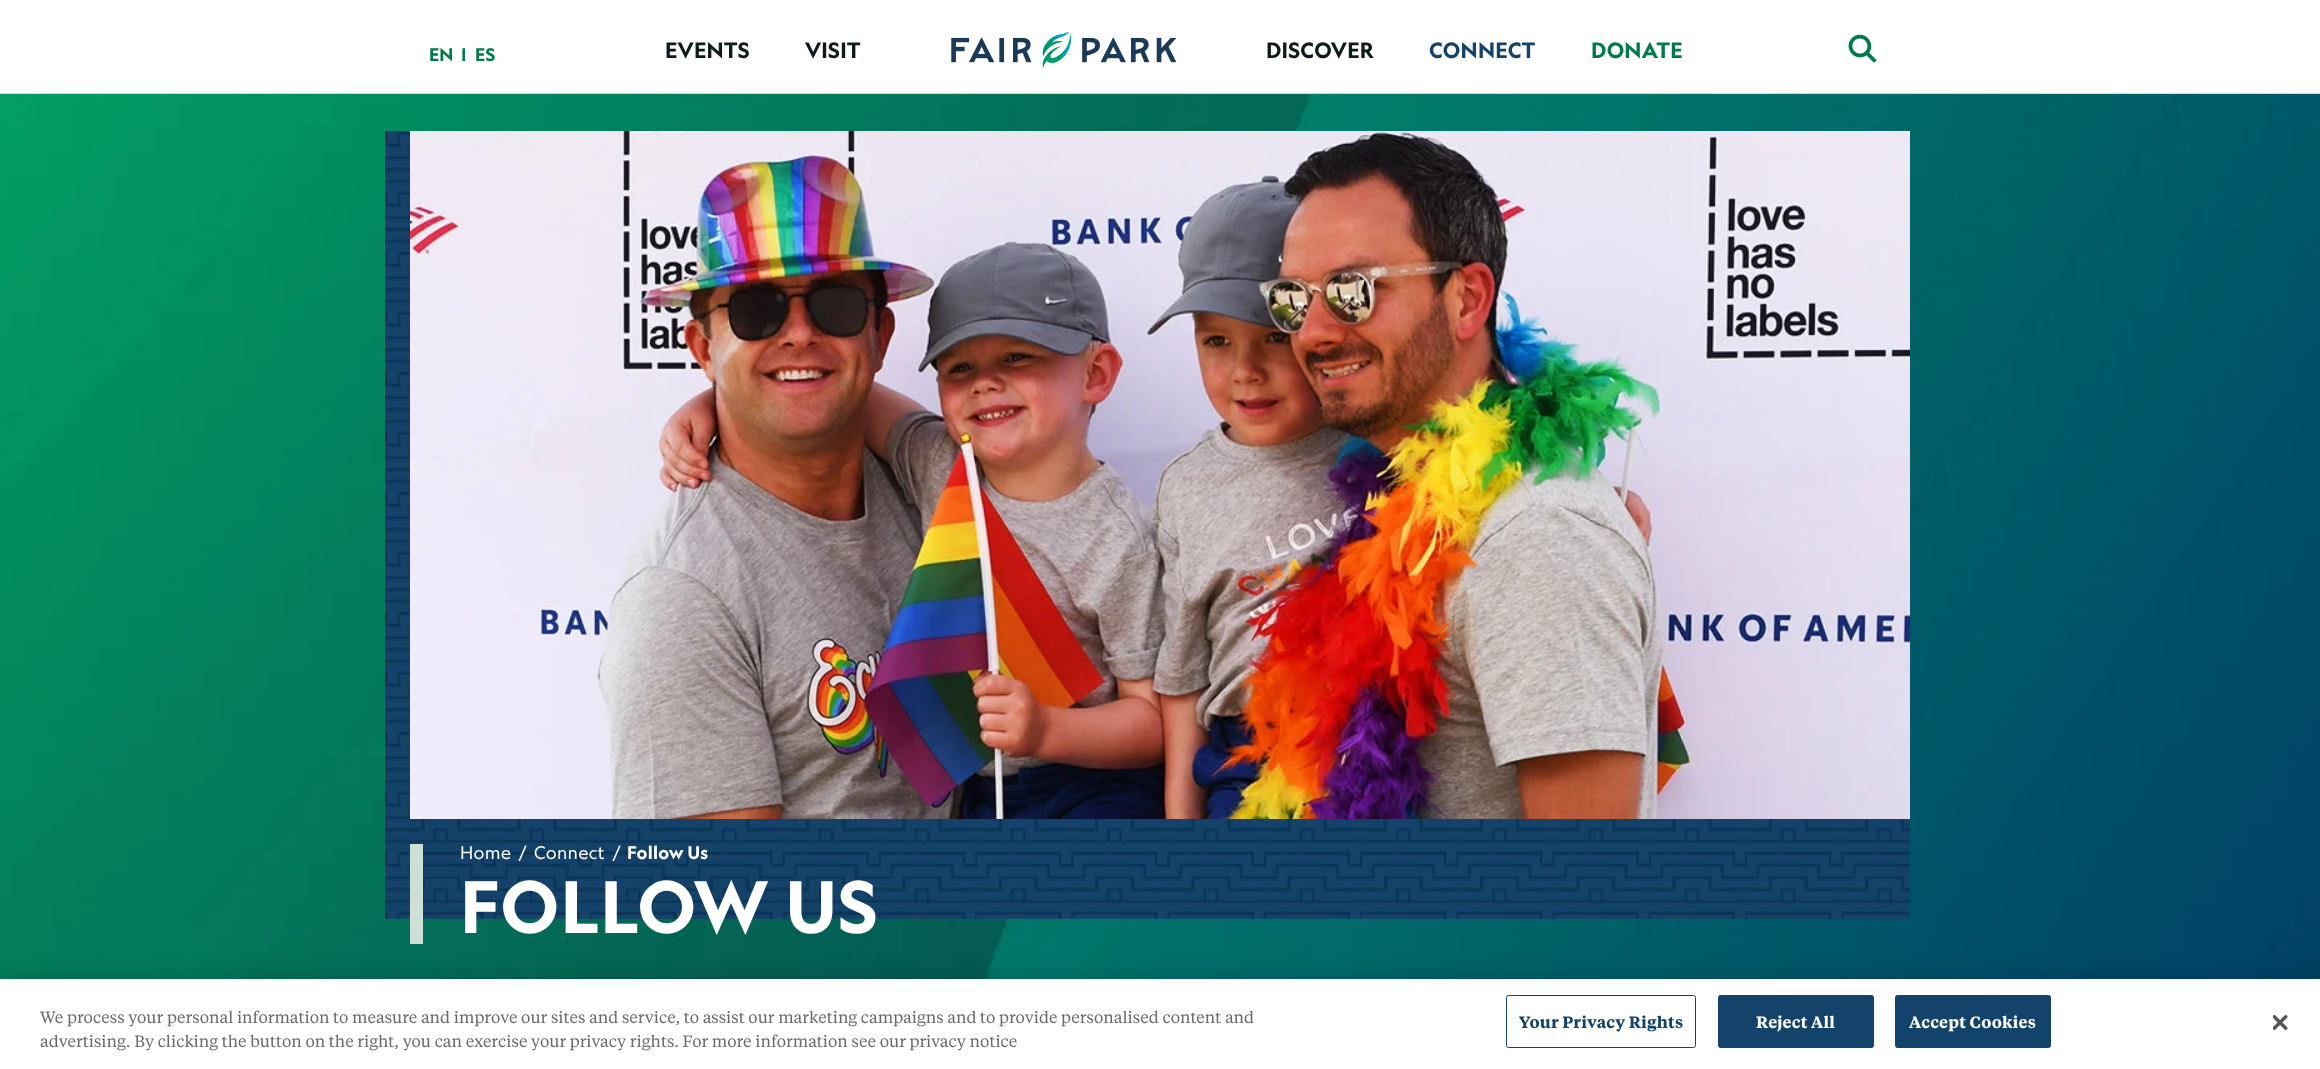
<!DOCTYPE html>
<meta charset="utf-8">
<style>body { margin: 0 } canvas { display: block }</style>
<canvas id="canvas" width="2320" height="1069"></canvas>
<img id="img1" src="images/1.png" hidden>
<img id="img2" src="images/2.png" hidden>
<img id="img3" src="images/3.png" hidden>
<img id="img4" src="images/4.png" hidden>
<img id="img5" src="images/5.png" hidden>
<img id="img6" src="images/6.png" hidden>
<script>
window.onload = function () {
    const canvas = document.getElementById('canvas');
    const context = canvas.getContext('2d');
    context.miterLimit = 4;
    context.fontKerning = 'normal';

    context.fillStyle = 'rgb(255, 255, 255)';
    context.fillRect(0, 0, 2320, 1069);
    context.fillStyle = 'rgb(206, 223, 214)';
    context.fillRect(0, 93, 2320, 1);
    context.drawImage(document.getElementById('img1'), 951, 31, 225, 37);
    context.drawImage(document.getElementById('img2'), 1848, 34, 29, 29);
    context.drawImage(document.getElementById('img3'), 0, 94, 2320, 885);
    context.drawImage(document.getElementById('img4'), 385, 131, 1525, 788);
    context.drawImage(document.getElementById('img5'), 410, 131, 1500, 688);
    context.fillRect(410, 844, 13, 100);
    context.fillStyle = 'rgba(0, 0, 0, 0.2)';
    context.filter = 'blur(11px)';
    context.beginPath();
    context.rect(0, 979, 2320, 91);
    context.fill();
    context.filter = 'none';
    context.fillStyle = 'rgb(255, 255, 255)';
    context.fillRect(0, 979, 2320, 90);
    context.beginPath();
    context.roundRect(1506.5, 995.5, 189, 52, 2);
    context.strokeStyle = 'rgb(19, 67, 107)';
    context.stroke();
    context.fillStyle = 'rgb(19, 67, 107)';
    context.beginPath();
    context.roundRect(1718.5, 995.5, 155, 52, 2);
    context.fill();
    context.stroke();
    context.beginPath();
    context.roundRect(1895.5, 995.5, 155, 52, 2);
    context.fill();
    context.stroke();
    context.drawImage(document.getElementById('img6'), 2273, 1015, 15, 15);
    context.letterSpacing = '0.25px';
    context.font = 'bold 17.5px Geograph';
    context.fillStyle = 'rgb(0, 122, 73)';
    context.fillText('EN', 429, 61);
    context.fillText('|', 461, 61);
    context.fillText('ES', 475, 61);
    context.font = 'bold 21.25px Geograph';
    context.fillStyle = 'rgb(13, 27, 30)';
    context.fillText('EVENTS', 665, 58);
    context.fillText('VISIT', 805, 58);
    context.fillText('DISCOVER', 1266, 58);
    context.fillStyle = 'rgb(19, 67, 107)';
    context.fillText('CONNECT', 1429, 58);
    context.fillStyle = 'rgb(0, 122, 73)';
    context.fillText('DONATE', 1591, 58);
    context.font = '17.5px Geograph';
    context.fillStyle = 'rgb(255, 255, 255)';
    context.fillText('Home', 460, 859);
    context.fillText('/', 518, 859);
    context.fillText('Connect', 534, 859);
    context.fillText('/', 612, 859);
    context.font = 'bold 17.5px Geograph';
    context.fillText('Follow Us', 627, 859);
    context.letterSpacing = '1.5px';
    context.font = 'bold 71px Geograph';
    context.fillText('FOLLOW US', 460, 933);
    context.letterSpacing = '0px';
    context.font = '16.25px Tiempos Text';
    context.fillStyle = 'rgb(105, 105, 105)';
    context.fillText('We process your personal information to measure and improve our sites and service, to assist our marketing campaigns and to provide personalised content and', 40, 1023);
    context.fillText('advertising. By clicking the button on the right, you can exercise your privacy rights. For more information see our privacy notice', 40, 1047);
    context.letterSpacing = '0.2px';
    context.font = '600 16.25px Tiempos Text';
    context.fillStyle = 'rgb(19, 67, 107)';
    context.fillText('Your Privacy Rights', 1519, 1028);
    context.fillStyle = 'rgb(255, 255, 255)';
    context.fillText('Reject All', 1756, 1028);
    context.fillText('Accept Cookies', 1909, 1028);
};
</script>
